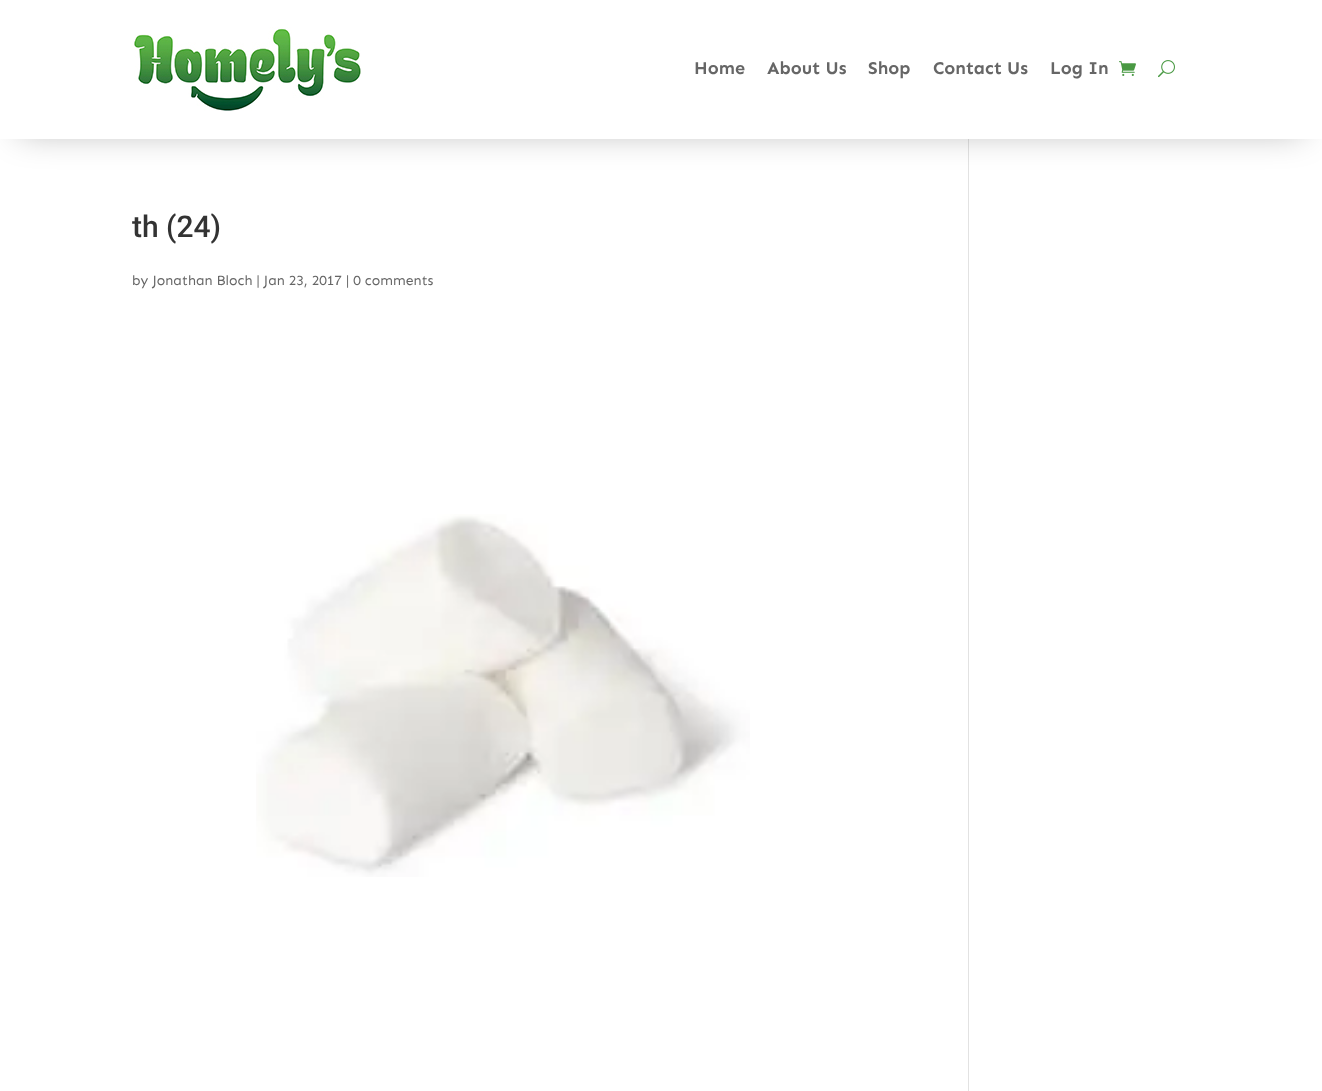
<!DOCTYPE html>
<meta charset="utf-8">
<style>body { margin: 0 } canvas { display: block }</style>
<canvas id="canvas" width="1322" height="1091"></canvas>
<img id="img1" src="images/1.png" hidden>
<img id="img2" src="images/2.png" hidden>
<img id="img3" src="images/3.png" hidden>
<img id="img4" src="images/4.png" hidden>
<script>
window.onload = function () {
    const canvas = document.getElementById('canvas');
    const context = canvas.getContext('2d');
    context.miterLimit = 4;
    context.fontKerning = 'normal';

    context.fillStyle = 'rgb(255, 255, 255)';
    context.fillRect(0, 0, 1322, 1091);
    context.fillStyle = 'rgb(226, 226, 226)';
    context.fillRect(968, 139, 1, 952);
    context.fillStyle = 'rgba(0, 0, 0, 0.3)';
    context.filter = 'blur(17px)';
    context.beginPath();
    context.rect(19, 31, 1284, 101);
    context.fill();
    context.filter = 'none';
    context.fillStyle = 'rgb(255, 255, 255)';
    context.fillRect(0, 0, 1322, 139);
    context.drawImage(document.getElementById('img1'), 134, 27, 227, 84);
    context.drawImage(document.getElementById('img2'), 1119, 61, 17, 15);
    context.drawImage(document.getElementById('img3'), 1158, 60, 17, 18);
    context.drawImage(document.getElementById('img4'), 256, 514, 494, 363);
    context.font = 'bold 18px Sen';
    context.fillStyle = 'rgb(102, 102, 102)';
    context.fillText('Home', 694, 74);
    context.fillText('About Us', 767, 74);
    context.fillText('Shop', 868, 74);
    context.fillText('Contact Us', 933, 74);
    context.fillText('Log In', 1050, 74);
    context.font = '500 30px Roboto';
    context.fillStyle = 'rgb(51, 51, 51)';
    context.fillText('th (24)', 132, 237);
    context.font = '14px Sen';
    context.fillStyle = 'rgb(102, 102, 102)';
    context.fillText('by Jonathan Bloch | Jan 23, 2017 | 0 comments', 132, 285);
};
</script>
